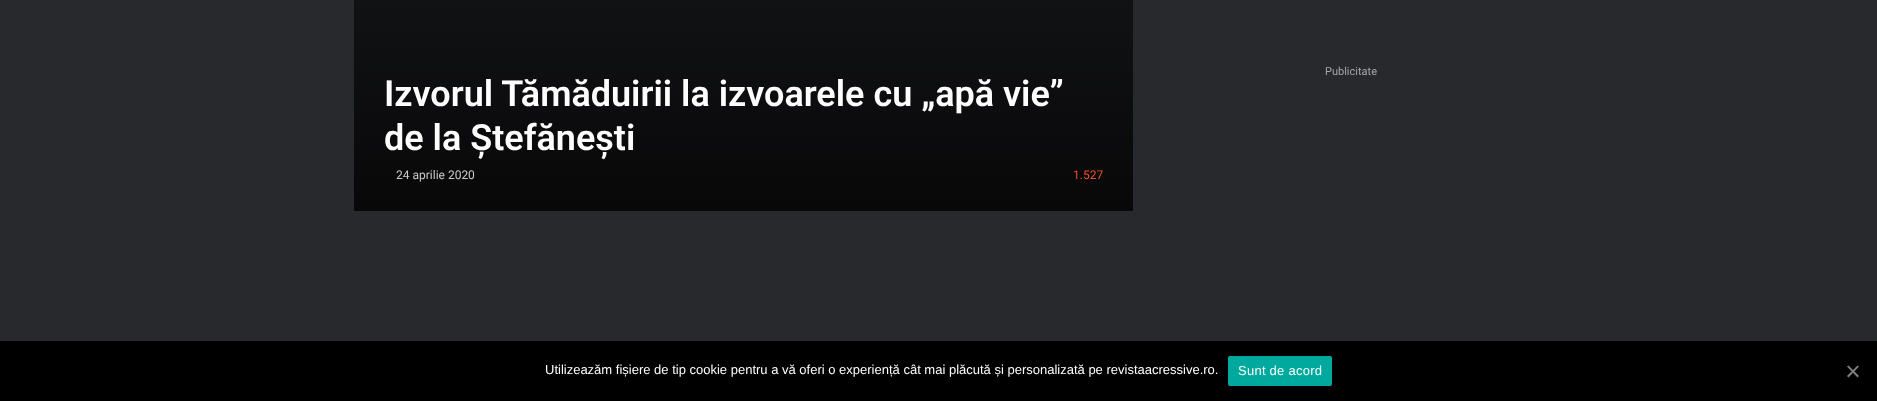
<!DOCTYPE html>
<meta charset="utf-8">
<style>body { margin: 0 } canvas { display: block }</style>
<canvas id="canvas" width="1877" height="401"></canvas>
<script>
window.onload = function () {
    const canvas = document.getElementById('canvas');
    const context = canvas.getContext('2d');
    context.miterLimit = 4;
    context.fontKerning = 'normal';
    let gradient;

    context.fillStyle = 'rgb(39, 41, 45)';
    context.fillRect(0, 0, 1877, 401);
    gradient = context.createLinearGradient(744, -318, 744, 211);
    gradient.addColorStop(0, 'rgb(31, 33, 36)');
    gradient.addColorStop(1, 'rgb(8, 8, 9)');
    context.fillStyle = gradient;
    context.fillRect(354, 0, 779, 211);
    context.fillStyle = 'rgb(0, 0, 0)';
    context.fillRect(0, 341, 1877, 60);
    context.fillStyle = 'rgb(0, 169, 157)';
    context.beginPath();
    context.roundRect(1228, 356, 104, 30, 2);
    context.fill();
    context.fillStyle = 'rgb(128, 128, 128)';
    context.beginPath();
    context.moveTo(1857.5, 365.5);
    context.lineTo(1859, 366.5);
    context.lineTo(1848.5, 377.5);
    context.lineTo(1847, 376);
    context.closePath();
    context.fill();
    context.beginPath();
    context.moveTo(1847, 366.5);
    context.lineTo(1848.5, 365.5);
    context.lineTo(1859, 376);
    context.lineTo(1857.5, 377.5);
    context.closePath();
    context.fill();
    context.font = '11px Roboto';
    context.fillStyle = 'rgb(165, 165, 165)';
    context.fillText('Publicitate', 1325, 75);
    context.font = '600 36px Roboto';
    context.fillStyle = 'rgb(253, 253, 253)';
    context.fillText('Izvorul Tămăduirii la izvoarele cu „apă vie”', 384, 106);
    context.fillText('de la Ștefănești', 384, 150);
    context.font = '12px Roboto';
    context.fillStyle = 'rgb(202, 202, 202)';
    context.fillText('24 aprilie 2020', 396, 179);
    context.fillStyle = 'rgb(241, 80, 42)';
    context.fillText('1.527', 1073, 179);
    context.font = '13px Liberation Sans';
    context.fillStyle = 'rgb(253, 253, 253)';
    context.fillText('Utilizeazăm fișiere de tip cookie pentru a vă oferi o experiență cât mai plăcută și personalizată pe revistaacressive.ro.', 545, 374);
    context.letterSpacing = '0.25px';
    context.fillText('Sunt de acord', 1238, 375);
};
</script>
